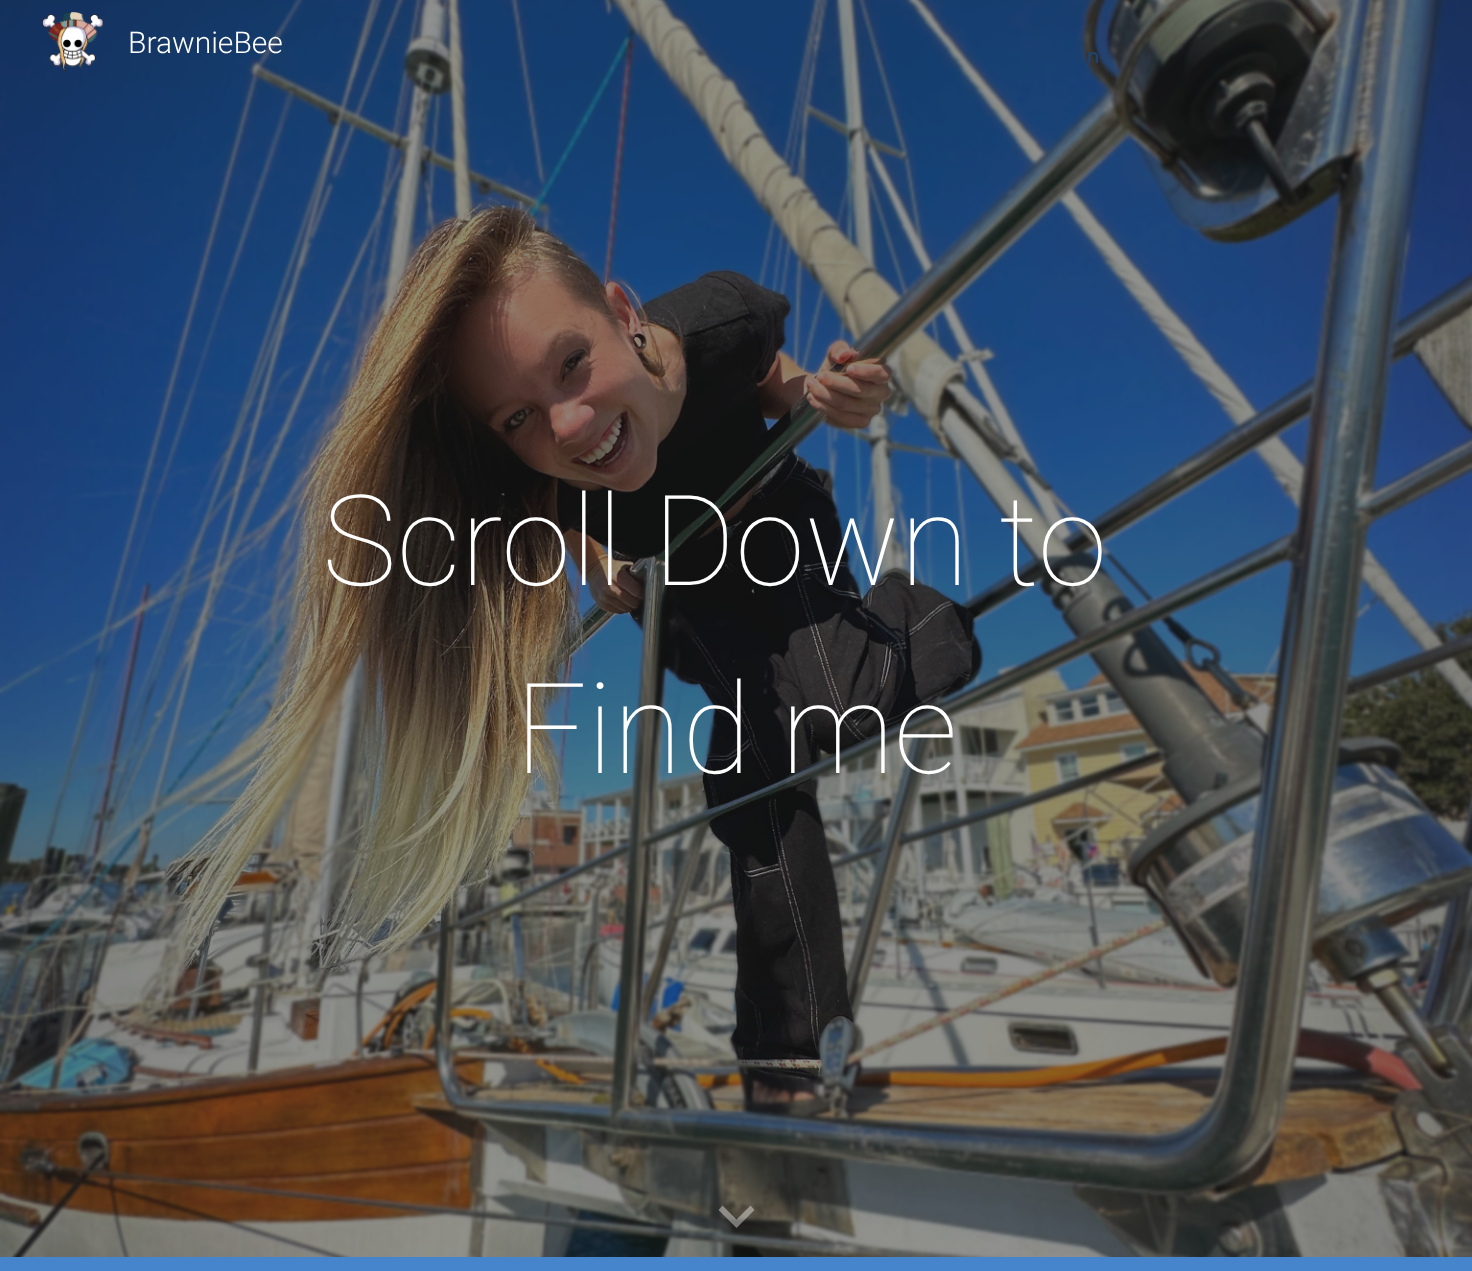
<!DOCTYPE html>
<meta charset="utf-8">
<style>body { margin: 0 } canvas { display: block }</style>
<canvas id="canvas" width="1472" height="1271"></canvas>
<img id="img1" src="images/2.png" hidden>
<img id="img2" src="images/1.png" hidden>
<script>
window.onload = function () {
    const canvas = document.getElementById('canvas');
    const context = canvas.getContext('2d');
    context.miterLimit = 4;
    context.fontKerning = 'normal';

    context.fillStyle = 'rgb(255, 255, 255)';
    context.fillRect(0, 0, 1472, 1271);
    context.drawImage(document.getElementById('img1'), 0, 0, 1472, 1257);
    context.drawImage(document.getElementById('img2'), 42, 12, 62, 60);
    context.fillStyle = 'rgb(70, 133, 204)';
    context.fillRect(0, 1257, 1472, 14);
    context.fillStyle = 'rgba(255, 255, 255, 0.4)';
    context.beginPath();
    context.moveTo(722.5, 1205.5);
    context.lineTo(736.5, 1219.5);
    context.lineTo(750.5, 1205.5);
    context.lineTo(754.5, 1210);
    context.lineTo(736.5, 1228);
    context.lineTo(718.5, 1210);
    context.closePath();
    context.fill();
    context.font = '300 30px Roboto';
    context.fillStyle = 'rgb(255, 255, 255)';
    context.fillText('BrawnieBee', 128, 53);
    context.font = '100 126px Roboto';
    context.fillText('Scroll Down to', 322, 585);
    context.fillText('Find me', 515, 773);
    context.font = '500 21px Google Sans';
    context.fillStyle = 'rgb(32, 67, 110)';
    context.fillText('n', 1087, 63);
};
</script>
